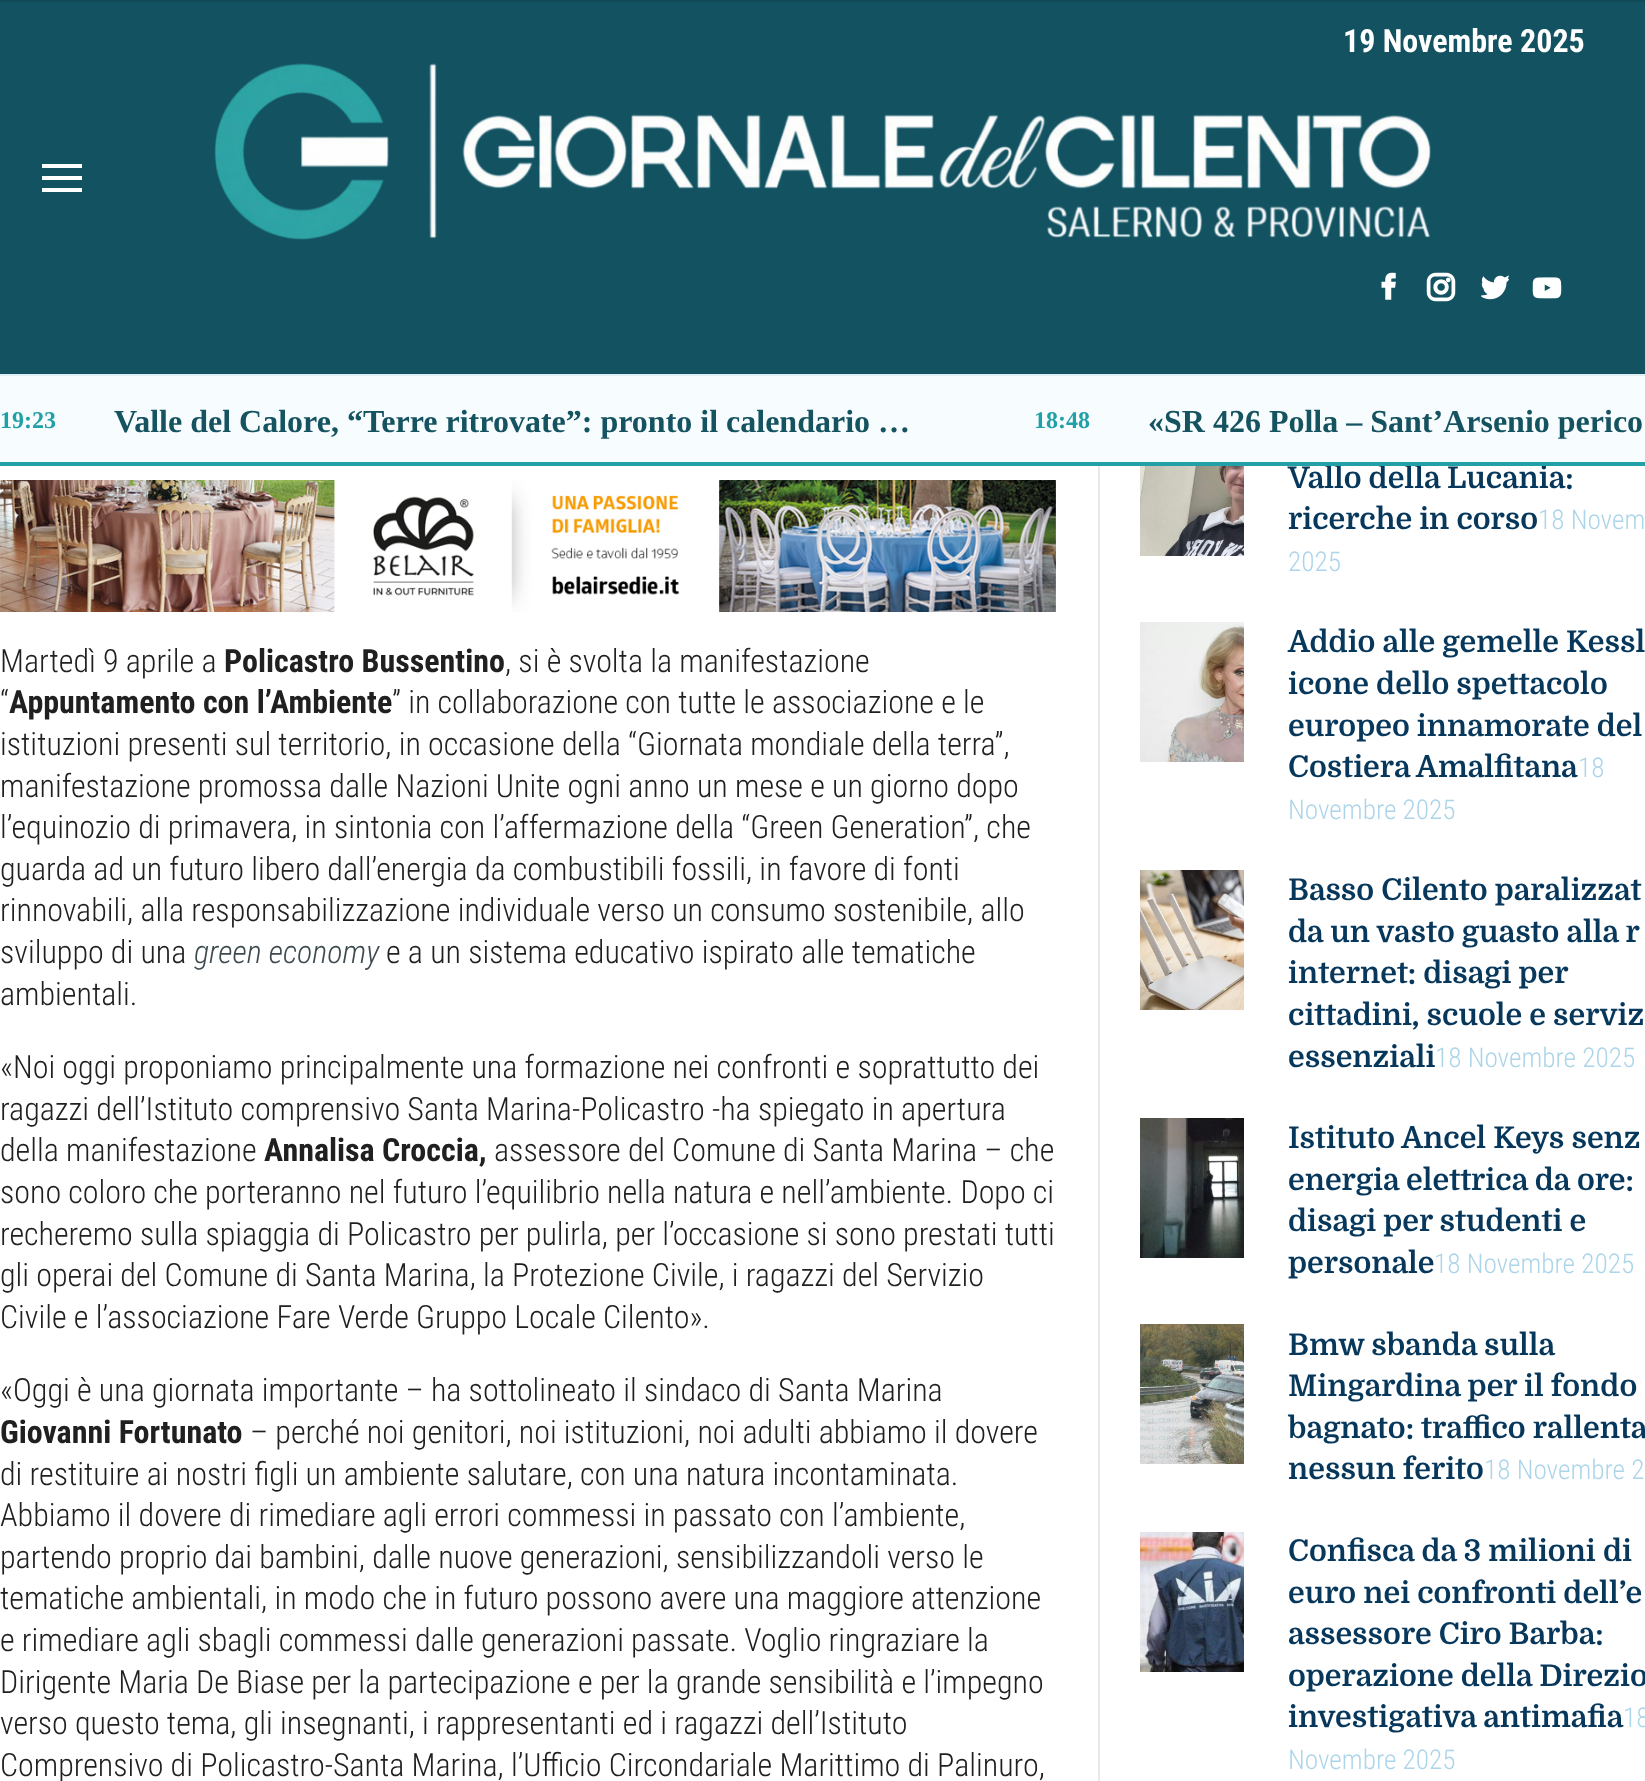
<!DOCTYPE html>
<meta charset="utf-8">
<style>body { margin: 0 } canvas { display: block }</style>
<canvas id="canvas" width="1645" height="1781"></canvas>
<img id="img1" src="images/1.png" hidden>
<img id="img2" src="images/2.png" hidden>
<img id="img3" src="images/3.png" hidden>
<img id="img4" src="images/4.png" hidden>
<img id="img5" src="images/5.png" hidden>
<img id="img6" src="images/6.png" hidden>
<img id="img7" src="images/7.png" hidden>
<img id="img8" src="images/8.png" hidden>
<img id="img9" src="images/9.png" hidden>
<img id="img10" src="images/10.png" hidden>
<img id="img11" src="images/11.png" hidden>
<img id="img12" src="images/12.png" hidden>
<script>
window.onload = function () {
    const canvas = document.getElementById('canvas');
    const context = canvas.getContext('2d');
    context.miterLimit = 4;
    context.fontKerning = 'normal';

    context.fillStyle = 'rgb(255, 255, 255)';
    context.fillRect(0, 0, 1645, 1781);
    context.fillStyle = 'rgb(18, 82, 97)';
    context.fillRect(0, 2, 1645, 372);
    context.fillStyle = 'rgb(16, 74, 87)';
    context.fillRect(0, 0, 1645, 2);
    context.fillStyle = 'rgb(255, 255, 255)';
    context.fillRect(42, 164, 40, 4);
    context.fillRect(42, 176, 40, 4);
    context.fillRect(42, 188, 40, 4);
    context.drawImage(document.getElementById('img1'), 214, 63, 1217, 177);
    context.drawImage(document.getElementById('img2'), 1381, 272, 15, 28);
    context.drawImage(document.getElementById('img3'), 1426, 272, 30, 30);
    context.drawImage(document.getElementById('img4'), 1481, 275, 28, 25);
    context.drawImage(document.getElementById('img5'), 1532, 277, 30, 22);
    context.fillStyle = 'rgb(225, 239, 242)';
    context.fillRect(0, 374, 1645, 2);
    context.fillStyle = 'rgb(247, 252, 254)';
    context.fillRect(0, 376, 1645, 86);
    context.drawImage(document.getElementById('img6'), 0, 480, 1056, 132);
    context.fillStyle = 'rgb(232, 232, 232)';
    context.fillRect(1098, 466, 2, 1315);
    context.drawImage(document.getElementById('img7'), 1140, 466, 104, 90);
    context.drawImage(document.getElementById('img8'), 1140, 622, 104, 140);
    context.drawImage(document.getElementById('img9'), 1140, 870, 104, 140);
    context.drawImage(document.getElementById('img10'), 1140, 1118, 104, 140);
    context.drawImage(document.getElementById('img11'), 1140, 1324, 104, 140);
    context.drawImage(document.getElementById('img12'), 1140, 1532, 104, 140);
    context.font = 'bold 32px Roboto Condensed';
    context.fillStyle = 'rgb(255, 255, 255)';
    context.fillText('19 Novembre 2025', 1343, 52);
    context.font = 'bold 24px Liberation Serif';
    context.fillStyle = 'rgb(33, 161, 167)';
    context.fillText('19:23', 0, 428);
    context.font = 'bold 32px Liberation Serif';
    context.fillStyle = 'rgb(21, 83, 96)';
    context.fillText('Valle del Calore, “Terre ritrovate”: pronto il calendario …', 114, 432);
    context.font = 'bold 24px Liberation Serif';
    context.fillStyle = 'rgb(33, 161, 167)';
    context.fillText('18:48', 1034, 428);
    context.font = 'bold 32px Liberation Serif';
    context.fillStyle = 'rgb(21, 83, 96)';
    context.fillText('«SR 426 Polla – Sant’Arsenio perico', 1148, 432);
    context.font = '300 32px Roboto Condensed';
    context.fillStyle = 'rgb(32, 32, 32)';
    context.fillText('Martedì 9 aprile a', 0, 672);
    context.font = 'bold 32px Roboto Condensed';
    context.fillText('Policastro Bussentino', 224, 672);
    context.font = '300 32px Roboto Condensed';
    context.fillText(', si è svolta la manifestazione', 505, 672);
    context.fillText('“', 0, 713);
    context.font = 'bold 32px Roboto Condensed';
    context.fillText('Appuntamento con l’Ambiente', 9, 713);
    context.font = '300 32px Roboto Condensed';
    context.fillText('” in collaborazione con tutte le associazione e le', 392, 713);
    context.fillText('istituzioni presenti sul territorio, in occasione della “Giornata mondiale della terra”,', 0, 755);
    context.fillText('manifestazione promossa dalle Nazioni Unite ogni anno un mese e un giorno dopo', 0, 797);
    context.fillText('l’equinozio di primavera, in sintonia con l’affermazione della “Green Generation”, che', 0, 838);
    context.fillText('guarda ad un futuro libero dall’energia da combustibili fossili, in favore di fonti', 0, 880);
    context.fillText('rinnovabili, alla responsabilizzazione individuale verso un consumo sostenibile, allo', 0, 921);
    context.fillText('sviluppo di una', 0, 963);
    context.font = 'italic 300 32px Roboto Condensed';
    context.fillStyle = 'rgb(62, 74, 79)';
    context.fillText('green economy', 194, 963);
    context.font = '300 32px Roboto Condensed';
    context.fillStyle = 'rgb(32, 32, 32)';
    context.fillText('e a un sistema educativo ispirato alle tematiche', 386, 963);
    context.fillText('ambientali.', 0, 1005);
    context.fillText('«Noi oggi proponiamo principalmente una formazione nei confronti e soprattutto dei', 0, 1078);
    context.fillText('ragazzi dell’Istituto comprensivo Santa Marina-Policastro -ha spiegato in apertura', 0, 1120);
    context.fillText('della manifestazione', 0, 1161);
    context.font = 'bold 32px Roboto Condensed';
    context.fillText('Annalisa Croccia,', 264, 1161);
    context.font = '300 32px Roboto Condensed';
    context.fillText('assessore del Comune di Santa Marina – che', 494, 1161);
    context.fillText('sono coloro che porteranno nel futuro l’equilibrio nella natura e nell’ambiente. Dopo ci', 0, 1203);
    context.fillText('recheremo sulla spiaggia di Policastro per pulirla, per l’occasione si sono prestati tutti', 0, 1245);
    context.fillText('gli operai del Comune di Santa Marina, la Protezione Civile, i ragazzi del Servizio', 0, 1286);
    context.fillText('Civile e l’associazione Fare Verde Gruppo Locale Cilento».', 0, 1328);
    context.fillText('«Oggi è una giornata importante – ha sottolineato il sindaco di Santa Marina', 0, 1401);
    context.font = 'bold 32px Roboto Condensed';
    context.fillText('Giovanni Fortunato', 0, 1443);
    context.font = '300 32px Roboto Condensed';
    context.fillText('– perché noi genitori, noi istituzioni, noi adulti abbiamo il dovere', 250, 1443);
    context.fillText('di restituire ai nostri figli un ambiente salutare, con una natura incontaminata.', 0, 1485);
    context.fillText('Abbiamo il dovere di rimediare agli errori commessi in passato con l’ambiente,', 0, 1526);
    context.fillText('partendo proprio dai bambini, dalle nuove generazioni, sensibilizzandoli verso le', 0, 1568);
    context.fillText('tematiche ambientali, in modo che in futuro possono avere una maggiore attenzione', 0, 1609);
    context.fillText('e rimediare agli sbagli commessi dalle generazioni passate. Voglio ringraziare la', 0, 1651);
    context.fillText('Dirigente Maria De Biase per la partecipazione e per la grande sensibilità e l’impegno', 0, 1693);
    context.fillText('verso questo tema, gli insegnanti, i rappresentanti ed i ragazzi dell’Istituto', 0, 1734);
    context.fillText('Comprensivo di Policastro-Santa Marina, l’Ufficio Circondariale Marittimo di Palinuro,', 0, 1776);
    context.font = 'bold 30px Domine';
    context.fillStyle = 'rgb(7, 56, 92)';
    context.fillText('Vallo della Lucania:', 1288, 488);
    context.fillStyle = 'rgb(33, 161, 167)';
    context.fillRect(0, 462, 1645, 4);
    context.fillStyle = 'rgb(7, 56, 92)';
    context.fillText('ricerche in corso', 1288, 529);
    context.font = '300 27.25px Roboto Condensed';
    context.fillStyle = 'rgb(172, 213, 234)';
    context.fillText('18 Novem', 1538, 529);
    context.fillText('2025', 1288, 571);
    context.font = 'bold 30px Domine';
    context.fillStyle = 'rgb(7, 56, 92)';
    context.fillText('Addio alle gemelle Kessl', 1288, 652);
    context.fillText('icone dello spettacolo', 1288, 694);
    context.fillText('europeo innamorate del', 1288, 736);
    context.fillText('Costiera Amalfitana', 1288, 777);
    context.font = '300 27.25px Roboto Condensed';
    context.fillStyle = 'rgb(172, 213, 234)';
    context.fillText('18', 1578, 777);
    context.fillText('Novembre 2025', 1288, 819);
    context.font = 'bold 30px Domine';
    context.fillStyle = 'rgb(7, 56, 92)';
    context.fillText('Basso Cilento paralizzat', 1288, 900);
    context.fillText('da un vasto guasto alla r', 1288, 942);
    context.fillText('internet: disagi per', 1288, 983);
    context.fillText('cittadini, scuole e serviz', 1288, 1025);
    context.fillText('essenziali', 1288, 1067);
    context.font = '300 27.25px Roboto Condensed';
    context.fillStyle = 'rgb(172, 213, 234)';
    context.fillText('18 Novembre 2025', 1435, 1067);
    context.font = 'bold 30px Domine';
    context.fillStyle = 'rgb(7, 56, 92)';
    context.fillText('Istituto Ancel Keys senz', 1288, 1148);
    context.fillText('energia elettrica da ore:', 1288, 1190);
    context.fillText('disagi per studenti e', 1288, 1231);
    context.fillText('personale', 1288, 1273);
    context.font = '300 27.25px Roboto Condensed';
    context.fillStyle = 'rgb(172, 213, 234)';
    context.fillText('18 Novembre 2025', 1434, 1273);
    context.font = 'bold 30px Domine';
    context.fillStyle = 'rgb(7, 56, 92)';
    context.fillText('Bmw sbanda sulla', 1288, 1355);
    context.fillText('Mingardina per il fondo', 1288, 1396);
    context.fillText('bagnato: traffico rallenta', 1288, 1438);
    context.fillText('nessun ferito', 1288, 1479);
    context.font = '300 27.25px Roboto Condensed';
    context.fillStyle = 'rgb(172, 213, 234)';
    context.fillText('18 Novembre 2', 1484, 1479);
    context.font = 'bold 30px Domine';
    context.fillStyle = 'rgb(7, 56, 92)';
    context.fillText('Confisca da 3 milioni di', 1288, 1561);
    context.fillText('euro nei confronti dell’e', 1288, 1603);
    context.fillText('assessore Ciro Barba:', 1288, 1644);
    context.fillText('operazione della Direzio', 1288, 1686);
    context.fillText('investigativa antimafia', 1288, 1727);
    context.font = '300 27.25px Roboto Condensed';
    context.fillStyle = 'rgb(172, 213, 234)';
    context.fillText('18', 1623, 1727);
    context.fillText('Novembre 2025', 1288, 1769);
};
</script>
